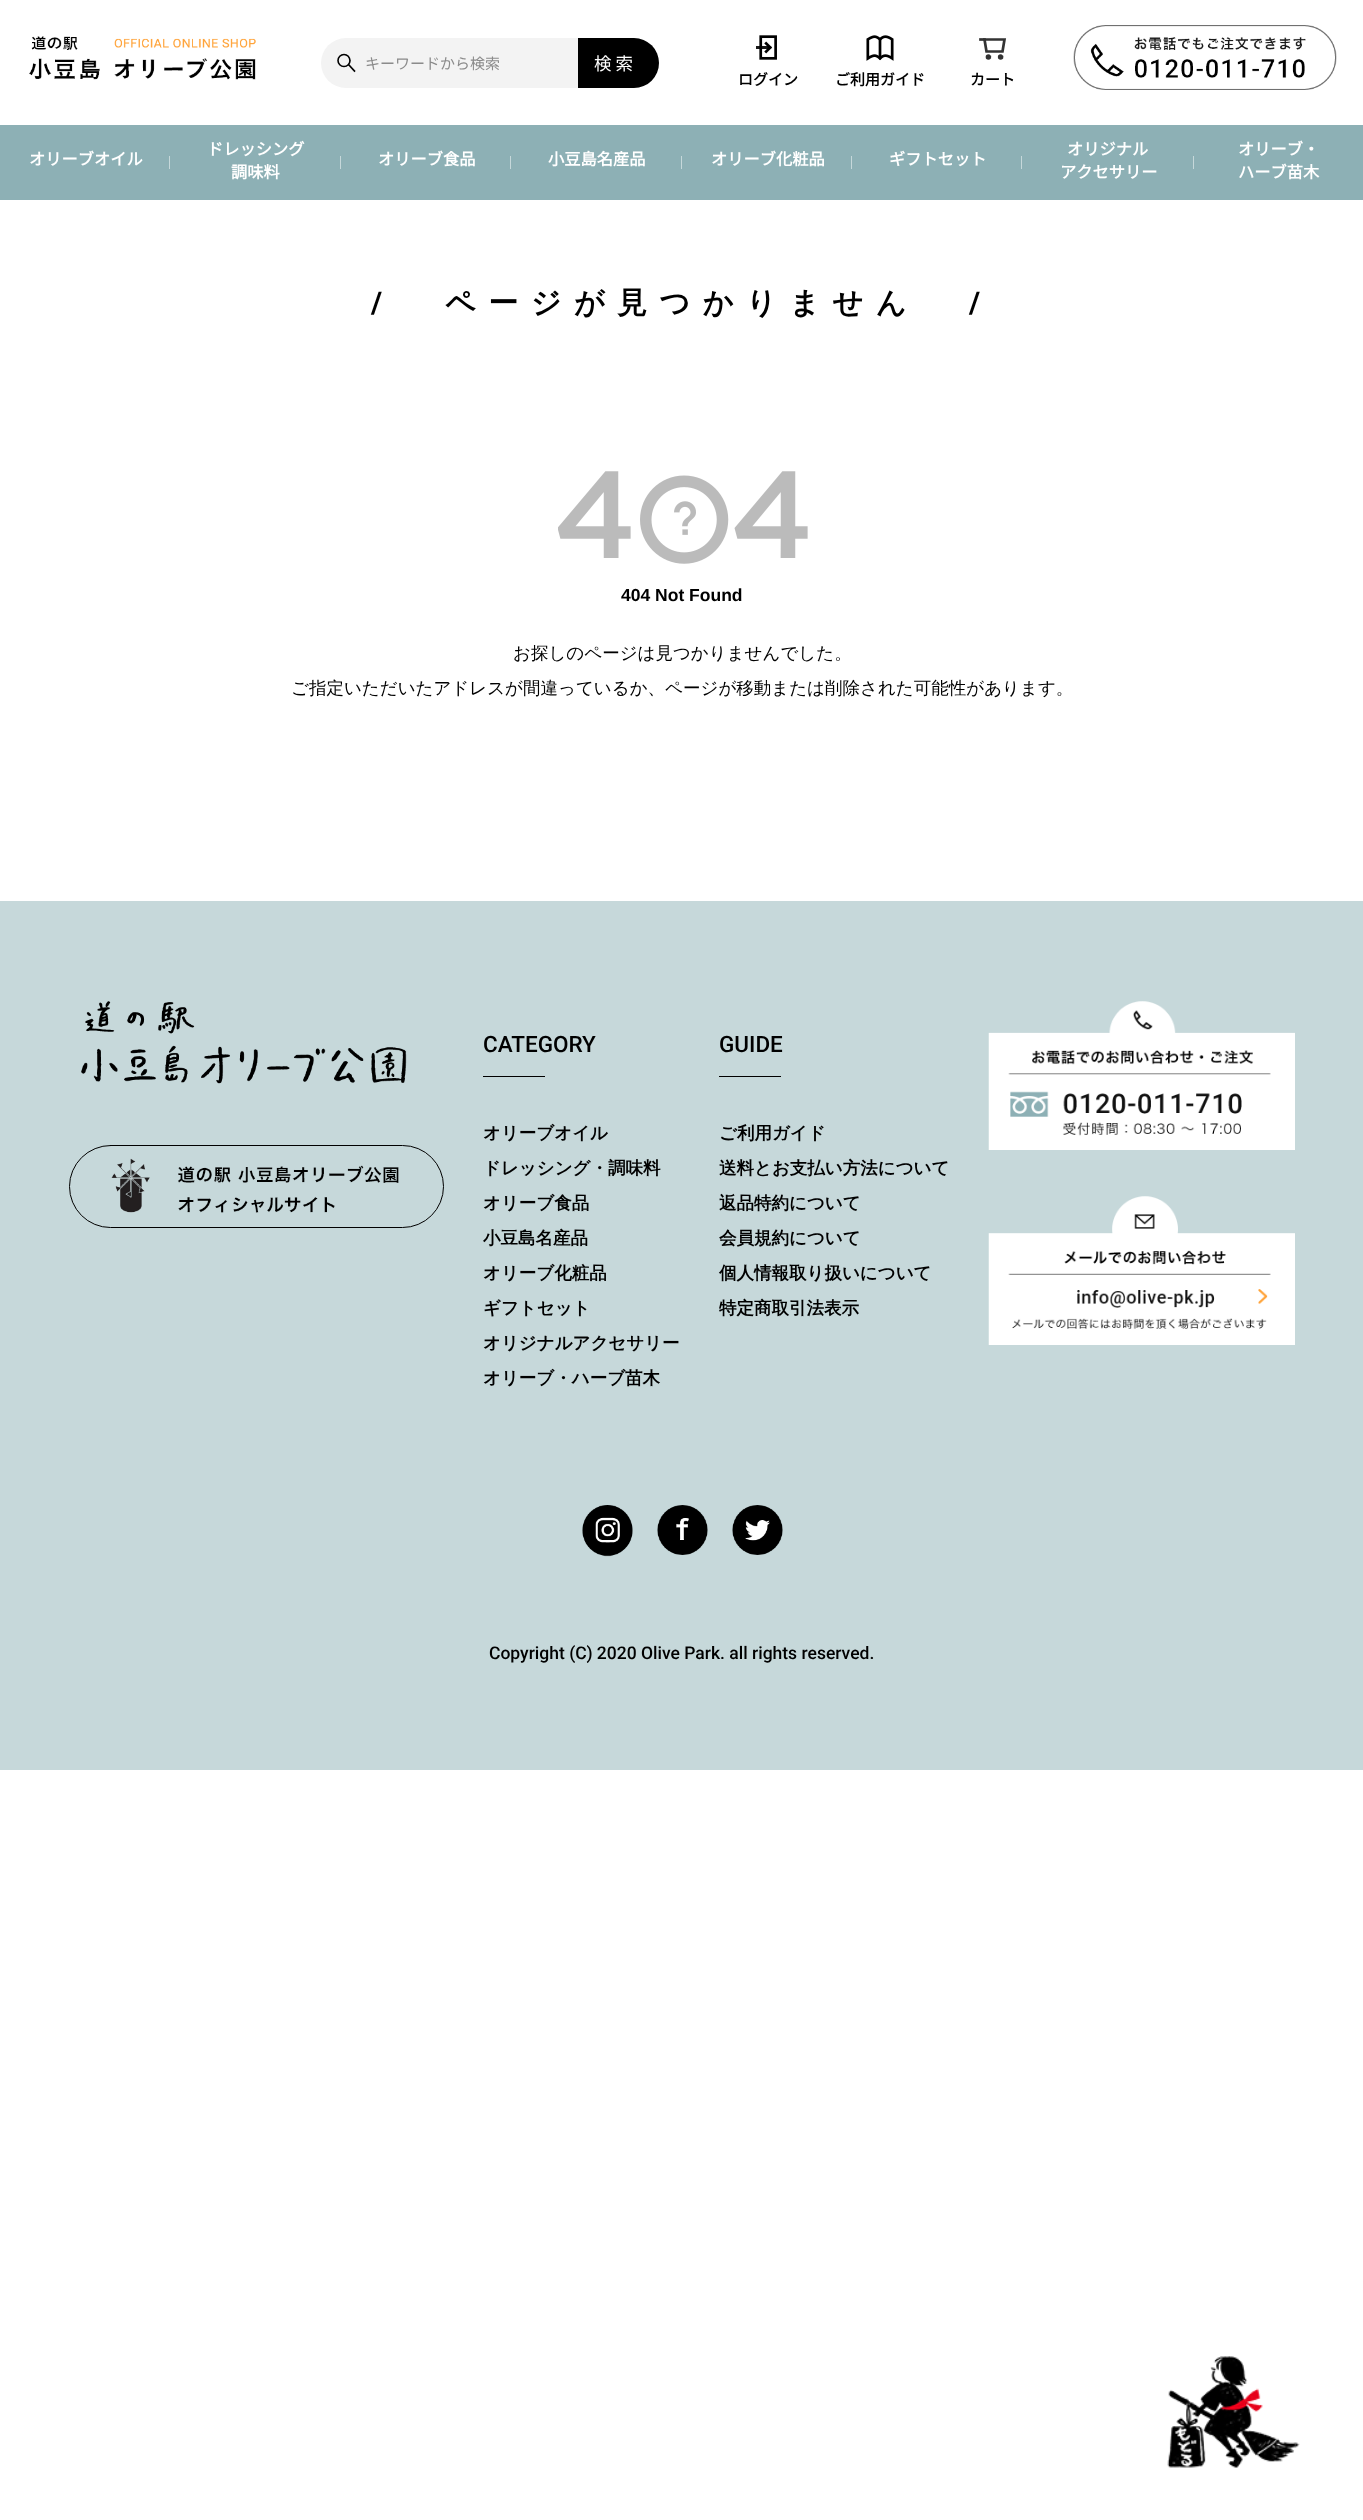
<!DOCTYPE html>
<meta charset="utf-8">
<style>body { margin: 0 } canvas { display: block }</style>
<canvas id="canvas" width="1363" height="2520"></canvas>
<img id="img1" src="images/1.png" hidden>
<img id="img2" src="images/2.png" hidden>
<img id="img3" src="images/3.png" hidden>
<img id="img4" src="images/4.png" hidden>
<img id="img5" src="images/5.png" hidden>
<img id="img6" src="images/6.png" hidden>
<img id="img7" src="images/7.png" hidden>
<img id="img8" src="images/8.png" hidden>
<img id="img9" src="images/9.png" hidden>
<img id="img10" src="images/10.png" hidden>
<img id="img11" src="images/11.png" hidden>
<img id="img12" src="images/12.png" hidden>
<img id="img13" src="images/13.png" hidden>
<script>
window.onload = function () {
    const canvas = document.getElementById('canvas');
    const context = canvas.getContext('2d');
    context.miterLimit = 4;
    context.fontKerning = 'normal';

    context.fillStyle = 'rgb(255, 255, 255)';
    context.fillRect(0, 0, 1363, 2520);
    context.drawImage(document.getElementById('img1'), 29, 36, 227, 44);
    context.fillStyle = 'rgb(243, 243, 243)';
    context.beginPath();
    context.roundRect(321, 38, 257, 50, [25, 0, 0, 25]);
    context.fill();
    context.beginPath();
    context.moveTo(349, 65);
    context.lineTo(354.5, 71);
    context.strokeStyle = 'rgb(0, 0, 0)';
    context.lineWidth = 1.6;
    context.lineCap = 'square';
    context.stroke();
    context.beginPath();
    context.arc(344, 60.5, 6, 0, 2 * Math.PI);
    context.stroke();
    context.fillStyle = 'rgb(0, 0, 0)';
    context.beginPath();
    context.roundRect(578, 38, 81, 50, [0, 25, 25, 0]);
    context.fill();
    context.drawImage(document.getElementById('img2'), 1073, 25, 264, 65);
    context.drawImage(document.getElementById('img3'), 756, 35, 21, 25);
    context.drawImage(document.getElementById('img4'), 866, 35, 28, 26);
    context.beginPath();
    context.moveTo(984.5, 39.5);
    context.lineTo(1004.5, 39.5);
    context.lineTo(1002.5, 51.5);
    context.lineTo(986.5, 51.5);
    context.closePath();
    context.strokeStyle = 'rgb(51, 51, 51)';
    context.lineWidth = 2.7;
    context.stroke();
    context.beginPath();
    context.arc(988.4, 57, 1.4, 0, 2 * Math.PI);
    context.stroke();
    context.beginPath();
    context.arc(1000.6, 57, 1.4, 0, 2 * Math.PI);
    context.stroke();
    context.beginPath();
    context.moveTo(984.5, 39.5);
    context.lineTo(980.5, 39.5);
    context.stroke();
    context.fillStyle = 'rgb(141, 176, 181)';
    context.fillRect(0, 125, 1363, 75);
    context.fillStyle = 'rgb(198, 216, 218)';
    context.fillRect(169, 156, 1, 13);
    context.fillRect(340, 156, 1, 13);
    context.fillRect(510, 156, 1, 13);
    context.fillRect(681, 156, 1, 13);
    context.fillRect(851, 156, 1, 13);
    context.fillRect(1021, 156, 1, 13);
    context.fillRect(1193, 156, 1, 13);
    context.drawImage(document.getElementById('img5'), 558, 471, 250, 93);
    context.fillRect(0, 901, 1363, 869);
    context.drawImage(document.getElementById('img6'), 81, 1001, 326, 83);
    context.drawImage(document.getElementById('img7'), 111, 1158, 288, 55);
    context.beginPath();
    context.roundRect(69.5, 1145.5, 374, 82, 41);
    context.strokeStyle = 'rgb(0, 0, 0)';
    context.lineWidth = 1;
    context.stroke();
    context.fillStyle = 'rgb(0, 0, 0)';
    context.fillRect(483, 1076, 62, 1);
    context.fillRect(719, 1076, 62, 1);
    context.drawImage(document.getElementById('img8'), 988, 1001, 307, 149);
    context.drawImage(document.getElementById('img9'), 988, 1196, 307, 149);
    context.drawImage(document.getElementById('img10'), 582, 1505, 51, 52);
    context.drawImage(document.getElementById('img11'), 657, 1505, 51, 50);
    context.drawImage(document.getElementById('img12'), 732, 1505, 51, 50);
    context.drawImage(document.getElementById('img13'), 1167, 2356, 133, 112);
    context.font = '100 15px Noto Sans JP';
    context.fillStyle = 'rgb(139, 139, 139)';
    context.fillText('キーワードから検索', 365, 69);
    context.letterSpacing = '4px';
    context.font = '100 17.5px Noto Sans JP';
    context.fillStyle = 'rgb(255, 255, 255)';
    context.fillText('検索', 594, 70);
    context.letterSpacing = '0px';
    context.font = 'bold 15px Noto Sans JP';
    context.fillStyle = 'rgb(0, 0, 0)';
    context.fillText('ログイン', 738, 85);
    context.fillText('ご利用ガイド', 835, 85);
    context.fillText('カート', 970, 85);
    context.font = 'bold 16.25px Noto Sans JP';
    context.fillStyle = 'rgb(255, 255, 255)';
    context.fillText('オリーブオイル', 29, 165);
    context.fillText('ドレッシング', 207, 155);
    context.fillText('調味料', 231, 178);
    context.fillText('オリーブ食品', 378, 165);
    context.fillText('小豆島名産品', 548, 165);
    context.fillText('オリーブ化粧品', 711, 165);
    context.fillText('ギフトセット', 889, 165);
    context.fillText('オリジナル', 1067, 155);
    context.fillText('アクセサリー', 1060, 178);
    context.fillText('オリーブ・', 1238, 155);
    context.fillText('ハーブ苗木', 1238, 178);
    context.letterSpacing = '12.5px';
    context.font = 'bold 30px Roboto';
    context.fillStyle = 'rgb(0, 0, 0)';
    context.fillText('/', 371, 313);
    context.font = 'bold 30px WenQuanYi Zen Hei';
    context.fillText('ページが見つかりません', 445, 313);
    context.font = 'bold 30px Roboto';
    context.fillText('/', 969, 313);
    context.letterSpacing = '0px';
    context.font = 'bold 17.5px Liberation Sans';
    context.fillText('404 Not Found', 621, 601);
    context.font = '500 17.5px WenQuanYi Zen Hei';
    context.fillText('お探しのページは見つかりませんでした。', 513, 659);
    context.fillText('ご指定いただいたアドレスが間違っているか、ページが移動または削除された可能性があります。', 291, 694);
    context.font = '500 22.5px Roboto';
    context.fillText('CATEGORY', 483, 1052);
    context.font = 'bold 17.5px WenQuanYi Zen Hei';
    context.fillText('オリーブオイル', 483, 1139);
    context.fillText('ドレッシング・調味料', 483, 1174);
    context.fillText('オリーブ食品', 483, 1209);
    context.fillText('小豆島名産品', 483, 1244);
    context.fillText('オリーブ化粧品', 483, 1279);
    context.fillText('ギフトセット', 483, 1314);
    context.fillText('オリジナルアクセサリー', 483, 1349);
    context.fillText('オリーブ・ハーブ苗木', 483, 1384);
    context.font = '500 22.5px Roboto';
    context.fillText('GUIDE', 719, 1052);
    context.font = 'bold 17.5px WenQuanYi Zen Hei';
    context.fillText('ご利用ガイド', 719, 1139);
    context.fillText('送料とお支払い方法について', 719, 1174);
    context.fillText('返品特約について', 719, 1209);
    context.fillText('会員規約について', 719, 1244);
    context.fillText('個人情報取り扱いについて', 719, 1279);
    context.fillText('特定商取引法表示', 719, 1314);
    context.font = '500 17.5px Roboto';
    context.fillText('Copyright (C) 2020 Olive Park. all rights reserved.', 489, 1659);
};
</script>
